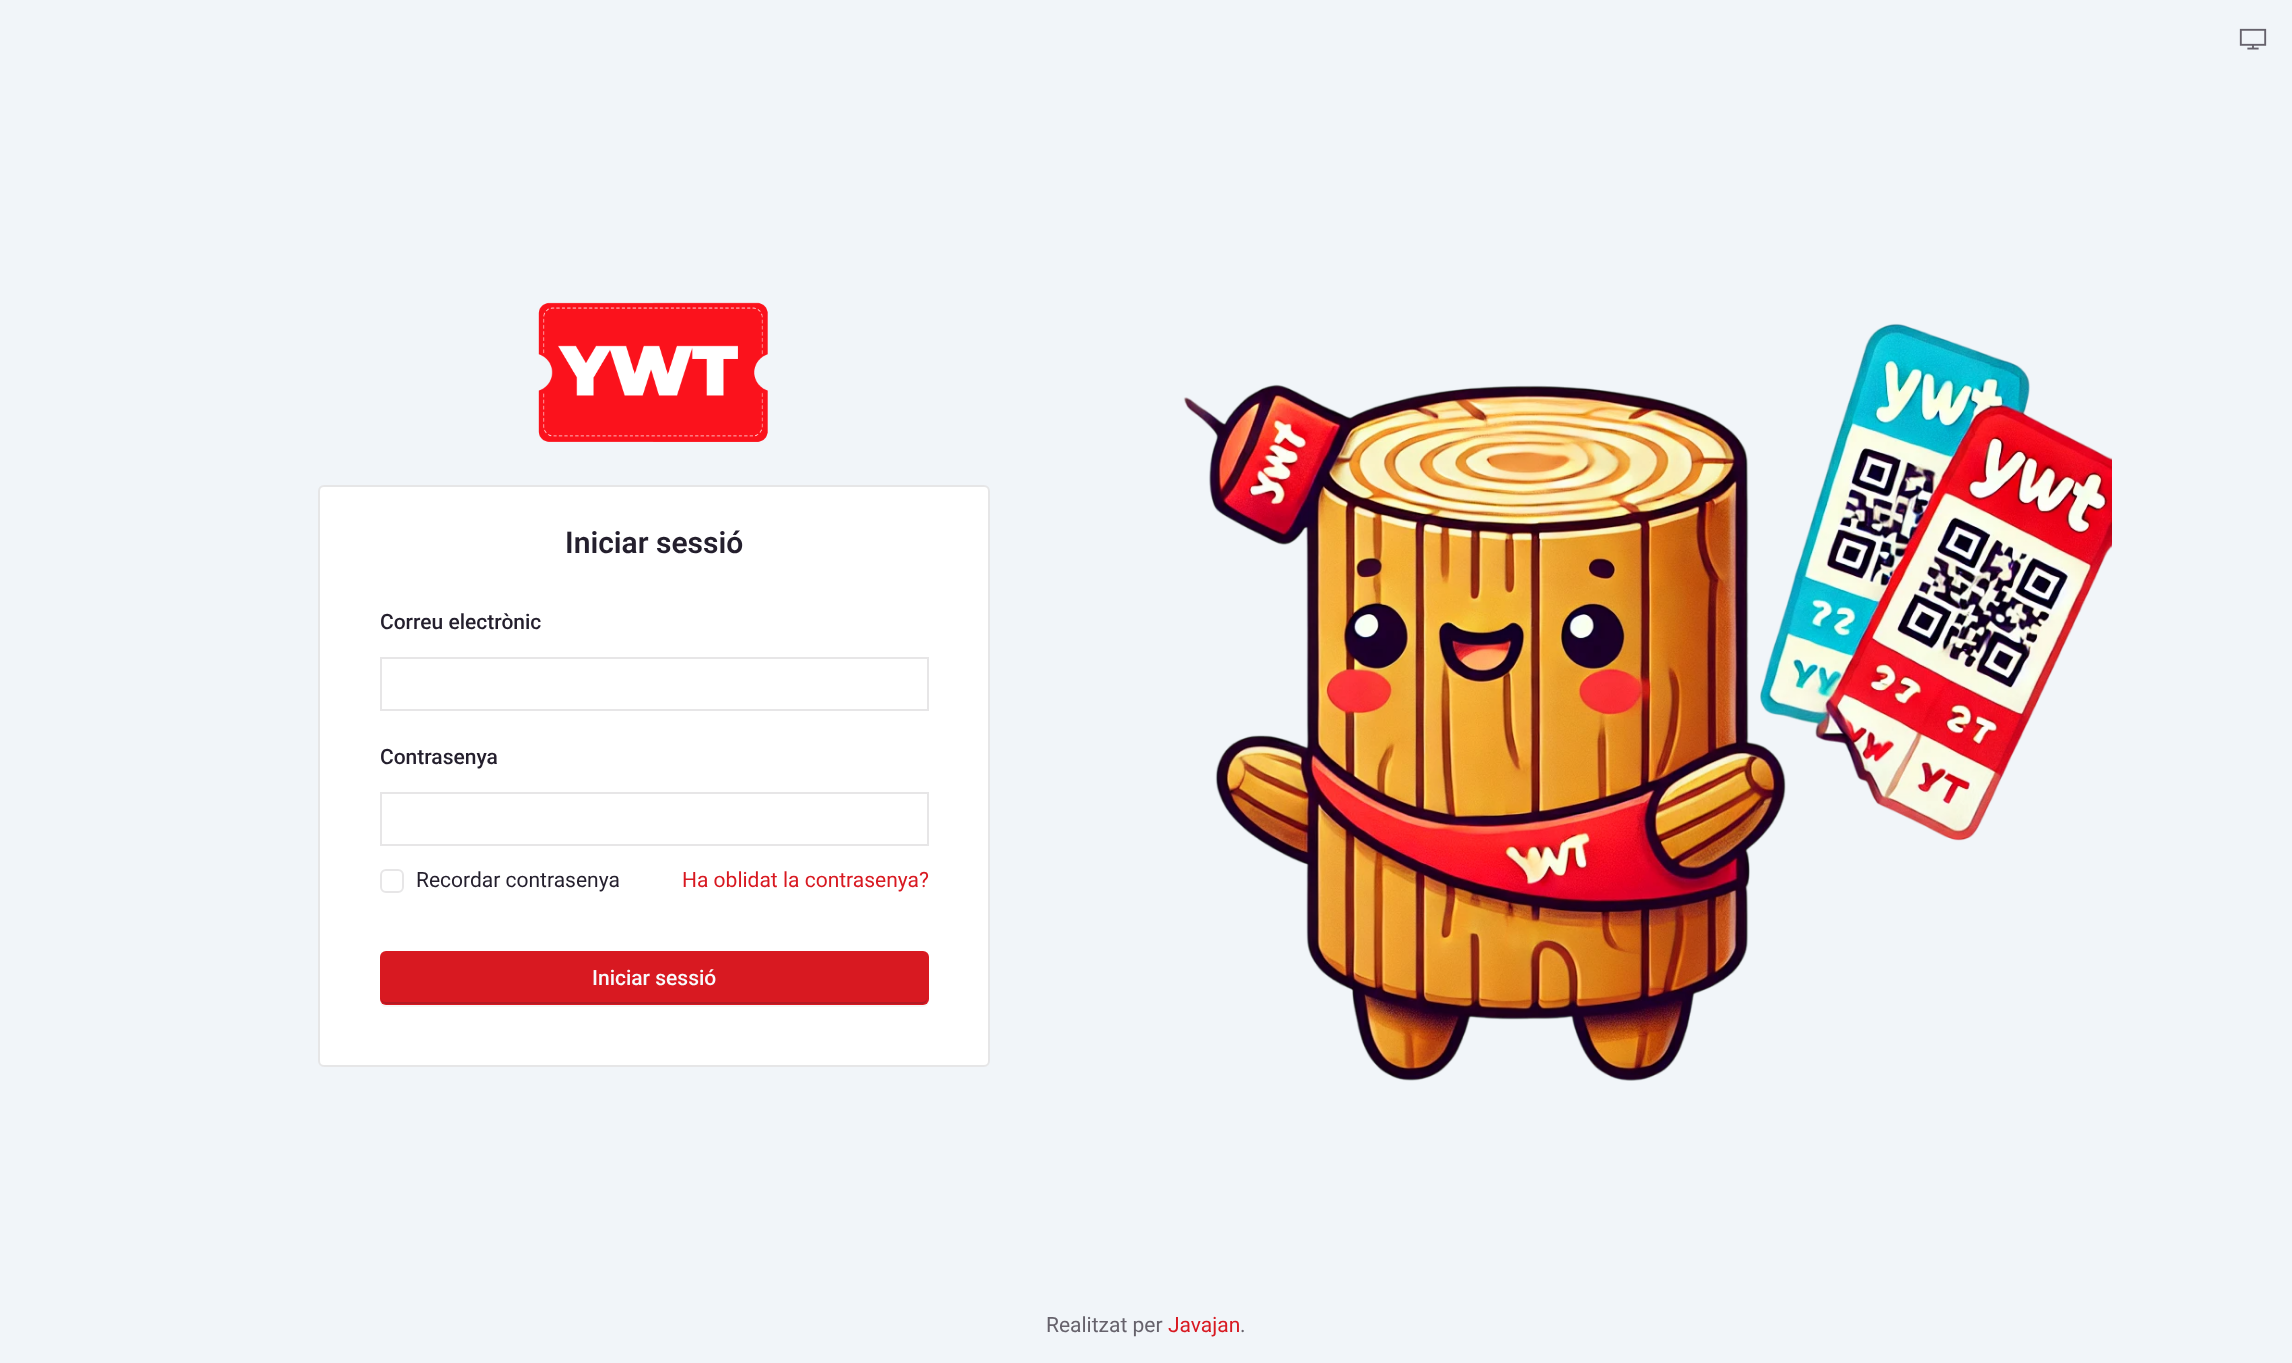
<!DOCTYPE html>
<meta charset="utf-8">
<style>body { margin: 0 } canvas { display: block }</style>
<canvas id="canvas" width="2292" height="1363"></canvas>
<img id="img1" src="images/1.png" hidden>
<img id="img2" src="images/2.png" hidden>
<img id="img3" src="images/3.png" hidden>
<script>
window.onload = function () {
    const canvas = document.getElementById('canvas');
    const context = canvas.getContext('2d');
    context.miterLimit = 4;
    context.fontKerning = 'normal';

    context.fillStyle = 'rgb(241, 245, 249)';
    context.fillRect(0, 0, 2292, 1363);
    context.drawImage(document.getElementById('img1'), 2239, 28, 28, 22);
    context.drawImage(document.getElementById('img2'), 538, 302, 230, 140);
    context.fillStyle = 'rgb(255, 255, 255)';
    context.beginPath();
    context.roundRect(318, 485, 672, 582, 6);
    context.fill();
    context.beginPath();
    context.roundRect(319, 486, 670, 580, 5);
    context.strokeStyle = 'rgba(102, 98, 108, 0.16)';
    context.lineWidth = 2;
    context.stroke();
    context.strokeStyle = 'rgb(231, 230, 231)';
    context.strokeRect(381, 658, 547, 52);
    context.strokeRect(381, 793, 547, 52);
    context.beginPath();
    context.roundRect(381, 870, 22, 22, 5);
    context.stroke();
    context.fillStyle = 'rgb(246, 246, 247)';
    context.beginPath();
    context.moveTo(380, 1001);
    context.bezierCurveTo(380, 1005, 383, 1007, 386, 1007);
    context.lineTo(923, 1007);
    context.bezierCurveTo(926, 1007, 929, 1004, 929, 1001);
    context.lineTo(929, 959);
    context.lineTo(928, 957);
    context.lineTo(928, 999);
    context.bezierCurveTo(928, 1002, 926, 1005, 922, 1005);
    context.lineTo(386, 1005);
    context.bezierCurveTo(383, 1005, 381, 1004, 380, 1001);
    context.closePath();
    context.fill();
    context.fillStyle = 'rgb(216, 25, 33)';
    context.beginPath();
    context.roundRect(380, 951, 549, 54, 6);
    context.fill();
    context.fillStyle = 'rgb(180, 26, 35)';
    context.beginPath();
    context.moveTo(381, 998);
    context.bezierCurveTo(381, 1001, 383, 1004, 386, 1004);
    context.lineTo(922, 1004);
    context.bezierCurveTo(925, 1004, 927, 1001, 927, 998);
    context.bezierCurveTo(927, 1000, 925, 1002, 922, 1002);
    context.lineTo(386, 1002);
    context.bezierCurveTo(383, 1002, 381, 1000, 381, 998);
    context.closePath();
    context.fill();
    context.drawImage(document.getElementById('img3'), 1183, 323, 929, 758);
    context.font = '600 30px Roboto';
    context.fillStyle = 'rgb(36, 31, 45)';
    context.fillText('Iniciar sessió', 565, 553);
    context.font = '500 21px Roboto';
    context.fillText('Correu electrònic', 380, 629);
    context.fillText('Contrasenya', 380, 764);
    context.font = '21px Roboto';
    context.fillText('Recordar contrasenya', 416, 887);
    context.fillStyle = 'rgb(216, 25, 33)';
    context.fillText('Ha oblidat la contrasenya?', 682, 887);
    context.font = '500 21px Roboto';
    context.fillStyle = 'rgb(248, 250, 252)';
    context.fillText('Iniciar sessió', 592, 985);
    context.font = '21px Roboto';
    context.fillStyle = 'rgb(102, 98, 108)';
    context.fillText('Realitzat per', 1046, 1332);
    context.fillStyle = 'rgb(216, 25, 33)';
    context.fillText('Javajan', 1168, 1332);
    context.fillStyle = 'rgb(102, 98, 108)';
    context.fillText('.', 1240, 1332);
};
</script>
